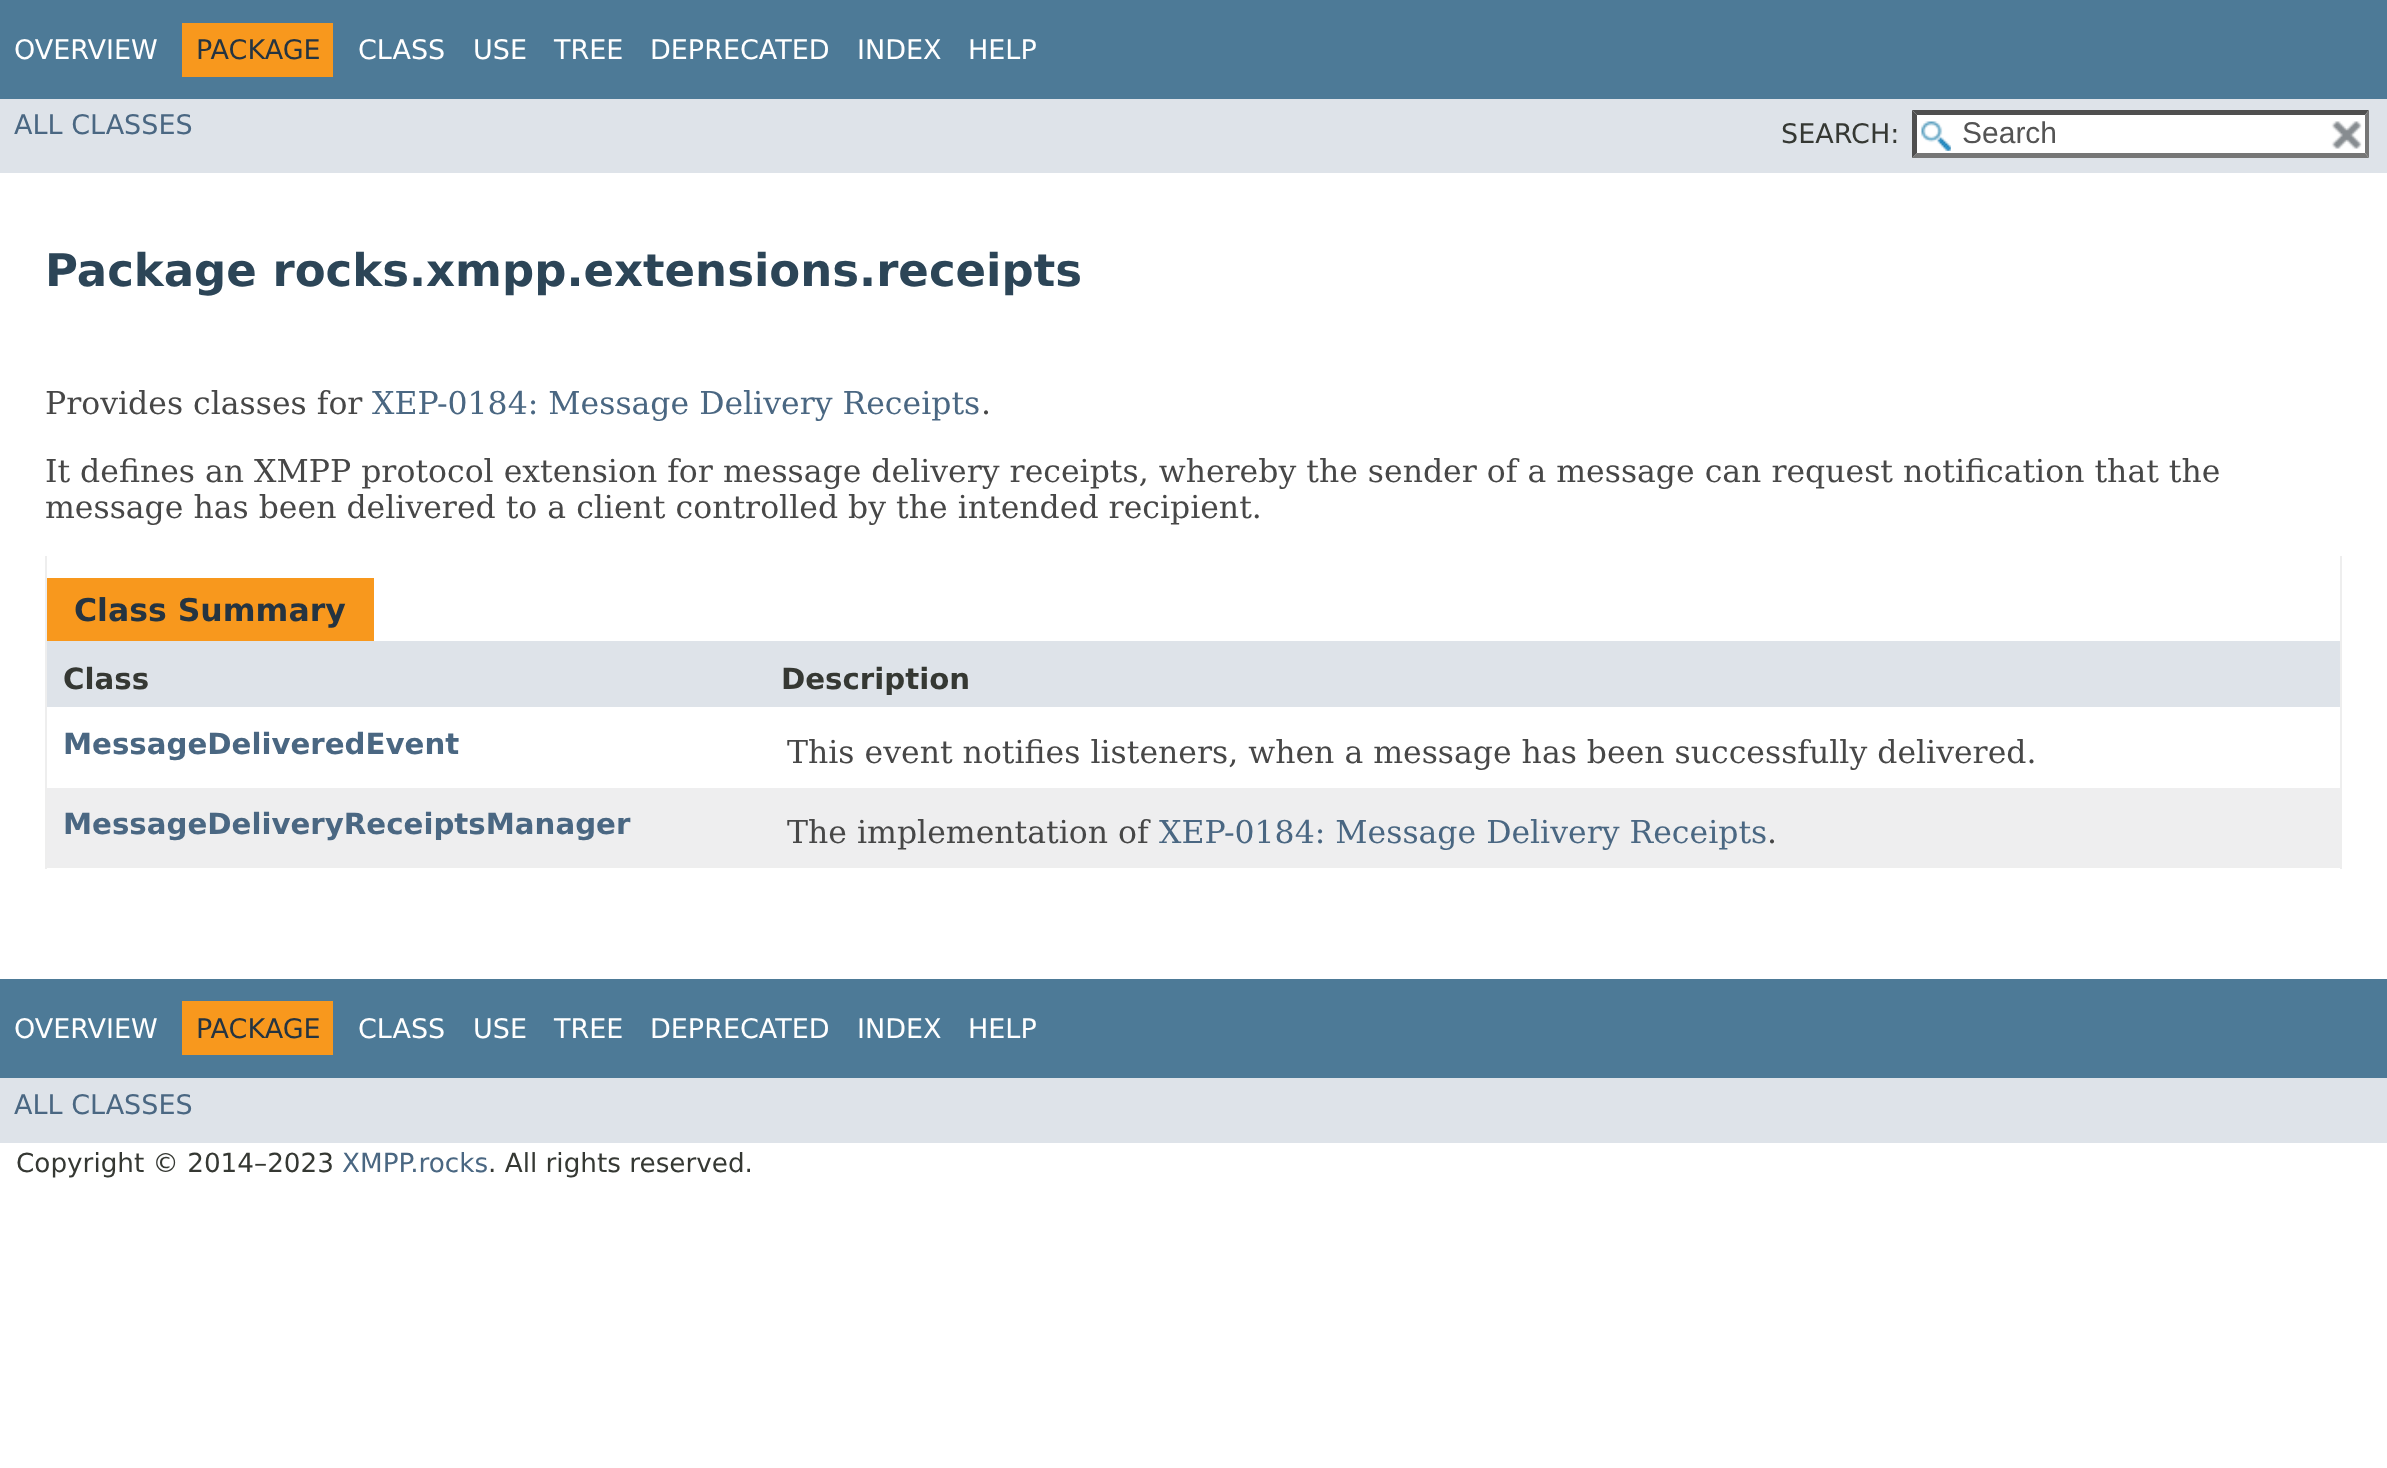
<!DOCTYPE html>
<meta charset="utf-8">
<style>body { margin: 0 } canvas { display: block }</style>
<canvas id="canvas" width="2387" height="1468"></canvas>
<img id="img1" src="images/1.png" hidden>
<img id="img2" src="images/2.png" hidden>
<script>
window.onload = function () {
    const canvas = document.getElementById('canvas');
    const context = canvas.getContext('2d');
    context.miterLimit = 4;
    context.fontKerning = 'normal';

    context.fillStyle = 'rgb(255, 255, 255)';
    context.fillRect(0, 0, 2387, 1468);
    context.fillStyle = 'rgb(77, 122, 151)';
    context.fillRect(0, 0, 2387, 99);
    context.fillStyle = 'rgb(248, 152, 29)';
    context.fillRect(182, 23, 151, 54);
    context.fillStyle = 'rgb(222, 227, 233)';
    context.fillRect(0, 99, 2387, 74);
    context.fillStyle = 'rgb(255, 255, 255)';
    context.fillRect(1913, 110, 456, 48);
    context.drawImage(document.getElementById('img1'), 1921, 121, 30, 30);
    context.fillStyle = 'rgb(79, 79, 79)';
    context.beginPath();
    context.moveTo(1912, 110);
    context.lineTo(2369, 110);
    context.lineTo(2365, 115);
    context.lineTo(1917, 115);
    context.closePath();
    context.fill();
    context.fillStyle = 'rgb(118, 118, 118)';
    context.beginPath();
    context.moveTo(2369, 110);
    context.lineTo(2369, 158);
    context.lineTo(2365, 153);
    context.lineTo(2365, 115);
    context.closePath();
    context.fill();
    context.beginPath();
    context.moveTo(2369, 158);
    context.lineTo(1912, 158);
    context.lineTo(1917, 153);
    context.lineTo(2365, 153);
    context.closePath();
    context.fill();
    context.fillStyle = 'rgb(79, 79, 79)';
    context.beginPath();
    context.moveTo(1912, 158);
    context.lineTo(1912, 110);
    context.lineTo(1917, 115);
    context.lineTo(1917, 153);
    context.closePath();
    context.fill();
    context.drawImage(document.getElementById('img2'), 2331, 121, 31, 28);
    context.fillStyle = 'rgb(238, 238, 238)';
    context.fillRect(2340, 556, 2, 313);
    context.fillRect(45, 866, 2297, 2);
    context.fillRect(45, 556, 2, 313);
    context.fillStyle = 'rgb(248, 152, 29)';
    context.fillRect(47, 578, 327, 63);
    context.fillStyle = 'rgb(222, 227, 233)';
    context.fillRect(47, 641, 2293, 66);
    context.fillStyle = 'rgb(238, 238, 239)';
    context.fillRect(47, 788, 2293, 78);
    context.fillStyle = 'rgb(77, 122, 151)';
    context.fillRect(0, 979, 2387, 99);
    context.fillStyle = 'rgb(248, 152, 29)';
    context.fillRect(182, 1001, 151, 54);
    context.fillStyle = 'rgb(222, 227, 233)';
    context.fillRect(0, 1078, 2387, 65);
    context.font = '27px DejaVu Sans';
    context.fillStyle = 'rgb(255, 255, 255)';
    context.fillText('OVERVIEW', 14, 59);
    context.fillStyle = 'rgb(37, 52, 65)';
    context.fillText('PACKAGE', 196, 59);
    context.fillStyle = 'rgb(255, 255, 255)';
    context.fillText('CLASS', 358, 59);
    context.fillText('USE', 473, 59);
    context.fillText('TREE', 554, 59);
    context.fillText('DEPRECATED', 650, 59);
    context.fillText('INDEX', 857, 59);
    context.fillText('HELP', 968, 59);
    context.fillStyle = 'rgb(74, 103, 130)';
    context.fillText('ALL CLASSES', 14, 134);
    context.fillStyle = 'rgb(53, 56, 51)';
    context.fillText('SEARCH:', 1781, 143);
    context.font = '30px Liberation Sans';
    context.fillStyle = 'rgb(84, 84, 84)';
    context.fillText('Search', 1962, 143);
    context.font = 'bold 45px DejaVu Sans';
    context.fillStyle = 'rgb(44, 69, 87)';
    context.fillText('Package rocks.xmpp.extensions.receipts', 45, 286);
    context.font = '31.5px DejaVu Serif';
    context.fillStyle = 'rgb(71, 71, 71)';
    context.fillText('Provides classes for', 45, 414);
    context.fillStyle = 'rgb(74, 103, 130)';
    context.fillText('XEP-0184: Message Delivery Receipts', 372, 414);
    context.fillStyle = 'rgb(71, 71, 71)';
    context.fillText('.', 981, 414);
    context.fillText('It defines an XMPP protocol extension for message delivery receipts, whereby the sender of a message can request notification that the', 45, 482);
    context.fillText('message has been delivered to a client controlled by the intended recipient.', 45, 518);
    context.font = 'bold 31.5px DejaVu Sans';
    context.fillStyle = 'rgb(37, 52, 65)';
    context.fillText('Class Summary', 74, 621);
    context.font = 'bold 29.25px DejaVu Sans';
    context.fillStyle = 'rgb(53, 56, 51)';
    context.fillText('Class', 63, 689);
    context.fillText('Description', 781, 689);
    context.fillStyle = 'rgb(74, 103, 130)';
    context.fillText('MessageDeliveredEvent', 63, 754);
    context.font = '31.5px DejaVu Serif';
    context.fillStyle = 'rgb(71, 71, 71)';
    context.fillText('This event notifies listeners, when a message has been successfully delivered.', 787, 763);
    context.font = 'bold 29.25px DejaVu Sans';
    context.fillStyle = 'rgb(74, 103, 130)';
    context.fillText('MessageDeliveryReceiptsManager', 63, 834);
    context.font = '31.5px DejaVu Serif';
    context.fillStyle = 'rgb(71, 71, 71)';
    context.fillText('The implementation of', 787, 843);
    context.fillStyle = 'rgb(74, 103, 130)';
    context.fillText('XEP-0184: Message Delivery Receipts', 1159, 843);
    context.fillStyle = 'rgb(71, 71, 71)';
    context.fillText('.', 1767, 843);
    context.font = '27px DejaVu Sans';
    context.fillStyle = 'rgb(255, 255, 255)';
    context.fillText('OVERVIEW', 14, 1038);
    context.fillStyle = 'rgb(37, 52, 65)';
    context.fillText('PACKAGE', 196, 1038);
    context.fillStyle = 'rgb(255, 255, 255)';
    context.fillText('CLASS', 358, 1038);
    context.fillText('USE', 473, 1038);
    context.fillText('TREE', 554, 1038);
    context.fillText('DEPRECATED', 650, 1038);
    context.fillText('INDEX', 857, 1038);
    context.fillText('HELP', 968, 1038);
    context.fillStyle = 'rgb(74, 103, 130)';
    context.fillText('ALL CLASSES', 14, 1114);
    context.font = '26.25px DejaVu Sans';
    context.fillStyle = 'rgb(53, 56, 51)';
    context.fillText('Copyright © 2014–2023', 16, 1172);
    context.fillStyle = 'rgb(74, 103, 130)';
    context.fillText('XMPP.rocks', 342, 1172);
    context.fillStyle = 'rgb(53, 56, 51)';
    context.fillText('. All rights reserved.', 488, 1172);
};
</script>
